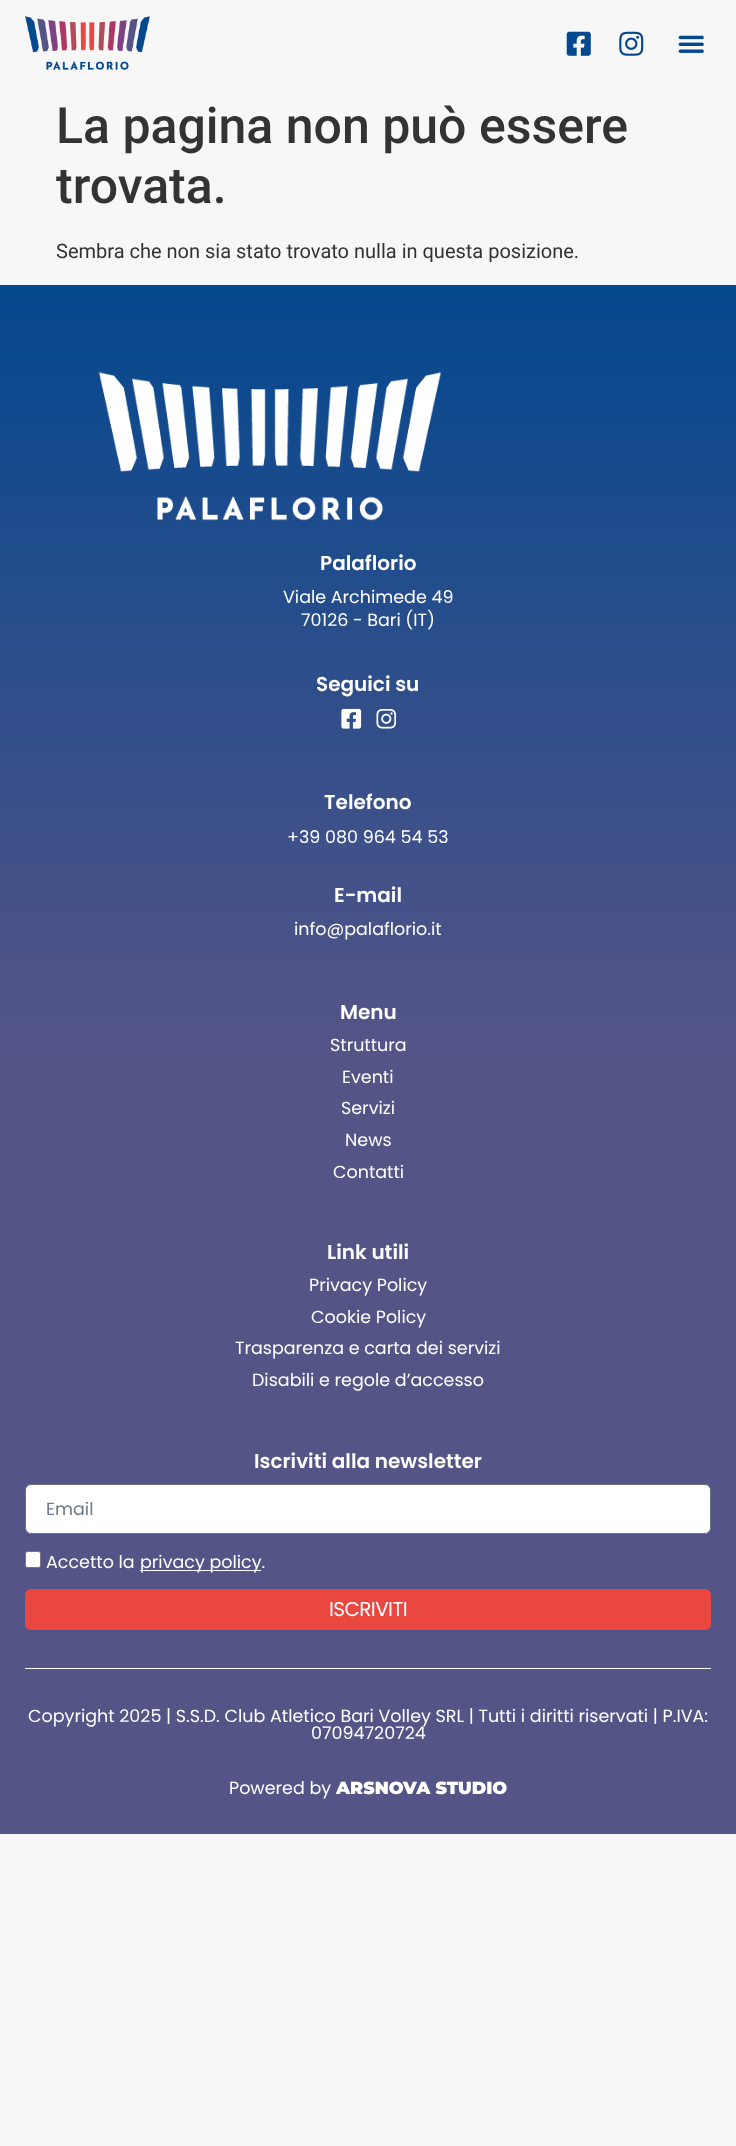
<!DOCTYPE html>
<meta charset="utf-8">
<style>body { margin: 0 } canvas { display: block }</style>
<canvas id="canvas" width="736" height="2146"></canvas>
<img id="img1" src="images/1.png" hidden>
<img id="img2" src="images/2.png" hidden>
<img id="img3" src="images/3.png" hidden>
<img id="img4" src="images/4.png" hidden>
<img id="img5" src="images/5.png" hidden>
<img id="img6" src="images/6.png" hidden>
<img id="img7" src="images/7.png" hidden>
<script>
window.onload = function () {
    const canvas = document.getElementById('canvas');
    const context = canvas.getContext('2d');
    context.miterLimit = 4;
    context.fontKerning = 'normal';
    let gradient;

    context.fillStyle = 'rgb(247, 247, 247)';
    context.fillRect(0, 0, 736, 2146);
    context.drawImage(document.getElementById('img1'), 25, 16, 125, 54);
    context.drawImage(document.getElementById('img2'), 566, 31, 25, 25);
    context.drawImage(document.getElementById('img3'), 619, 31, 25, 25);
    context.drawImage(document.getElementById('img4'), 678, 35, 26, 18);
    gradient = context.createLinearGradient(368, 285, 368, 1834);
    gradient.addColorStop(0, 'rgb(4, 72, 142)');
    gradient.addColorStop(0.5, 'rgb(85, 84, 135)');
    context.fillStyle = gradient;
    context.fillRect(0, 285, 736, 1549);
    context.drawImage(document.getElementById('img5'), 98, 372, 344, 149);
    context.drawImage(document.getElementById('img6'), 341, 708, 21, 21);
    context.drawImage(document.getElementById('img7'), 376, 709, 21, 20);
    context.fillStyle = 'rgb(255, 255, 255)';
    context.beginPath();
    context.roundRect(25.5, 1484.5, 685, 49, 5.5);
    context.fill();
    context.strokeStyle = 'rgb(105, 114, 125)';
    context.stroke();
    context.beginPath();
    context.roundRect(25.5, 1551.5, 15, 16, 2);
    context.fill();
    context.strokeStyle = 'rgb(118, 118, 118)';
    context.stroke();
    context.fillRect(140, 1570, 121, 1);
    context.fillStyle = 'rgb(233, 71, 64)';
    context.beginPath();
    context.roundRect(25, 1589, 686, 41, 6);
    context.fill();
    context.fillStyle = 'rgb(255, 255, 255)';
    context.fillRect(25, 1668, 686, 1);
    context.font = '500 50px Roboto';
    context.fillStyle = 'rgb(51, 51, 51)';
    context.fillText('La pagina non può essere', 56, 143);
    context.fillText('trovata.', 56, 203);
    context.font = '20px Roboto';
    context.fillText('Sembra che non sia stato trovato nulla in questa posizione.', 56, 258);
    context.font = '600 20px Poppins';
    context.fillStyle = 'rgb(255, 255, 255)';
    context.fillText('Palaflorio', 320, 570);
    context.font = '17.5px Poppins';
    context.fillText('Viale Archimede 49', 283, 603);
    context.fillText('70126 - Bari (IT)', 301, 626);
    context.font = '600 20px Poppins';
    context.fillText('Seguici su', 316, 691);
    context.fillText('Telefono', 324, 809);
    context.font = '17.5px Poppins';
    context.fillText('+39 080 964 54 53', 287, 843);
    context.font = '600 20px Poppins';
    context.fillText('E-mail', 334, 902);
    context.font = '17.5px Poppins';
    context.fillText('info@palaflorio.it', 294, 935);
    context.font = '600 20px Poppins';
    context.fillText('Menu', 340, 1019);
    context.font = '17.5px Poppins';
    context.fillText('Struttura', 330, 1051);
    context.fillText('Eventi', 342, 1083);
    context.fillText('Servizi', 341, 1114);
    context.fillText('News', 345, 1146);
    context.fillText('Contatti', 333, 1178);
    context.font = '600 20px Poppins';
    context.fillText('Link utili', 327, 1259);
    context.font = '17.5px Poppins';
    context.fillText('Privacy Policy', 309, 1291);
    context.fillText('Cookie Policy', 311, 1323);
    context.fillText('Trasparenza e carta dei servizi', 235, 1354);
    context.fillText('Disabili e regole d’accesso', 252, 1386);
    context.font = '600 20px Poppins';
    context.fillText('Iscriviti alla newsletter', 254, 1468);
    context.font = '17.5px Poppins';
    context.fillStyle = 'rgb(112, 119, 136)';
    context.fillText('Email', 46, 1515);
    context.fillStyle = 'rgb(255, 255, 255)';
    context.fillText('Accetto la', 46, 1568);
    context.fillText('privacy policy.', 140, 1568);
    context.letterSpacing = '-0.6px';
    context.font = '20px Poppins';
    context.fillText('ISCRIVITI', 329, 1616);
    context.letterSpacing = '0px';
    context.font = '17.5px Poppins';
    context.fillText('Copyright 2025 | S.S.D. Club Atletico Bari Volley SRL | Tutti i diritti riservati | P.IVA:', 28, 1722);
    context.fillText('07094720724', 311, 1739);
    context.fillText('Powered by', 229, 1794);
    context.font = '900 17.5px Montserrat';
    context.fillText('ARSNOVA STUDIO', 336, 1794);
};
</script>
